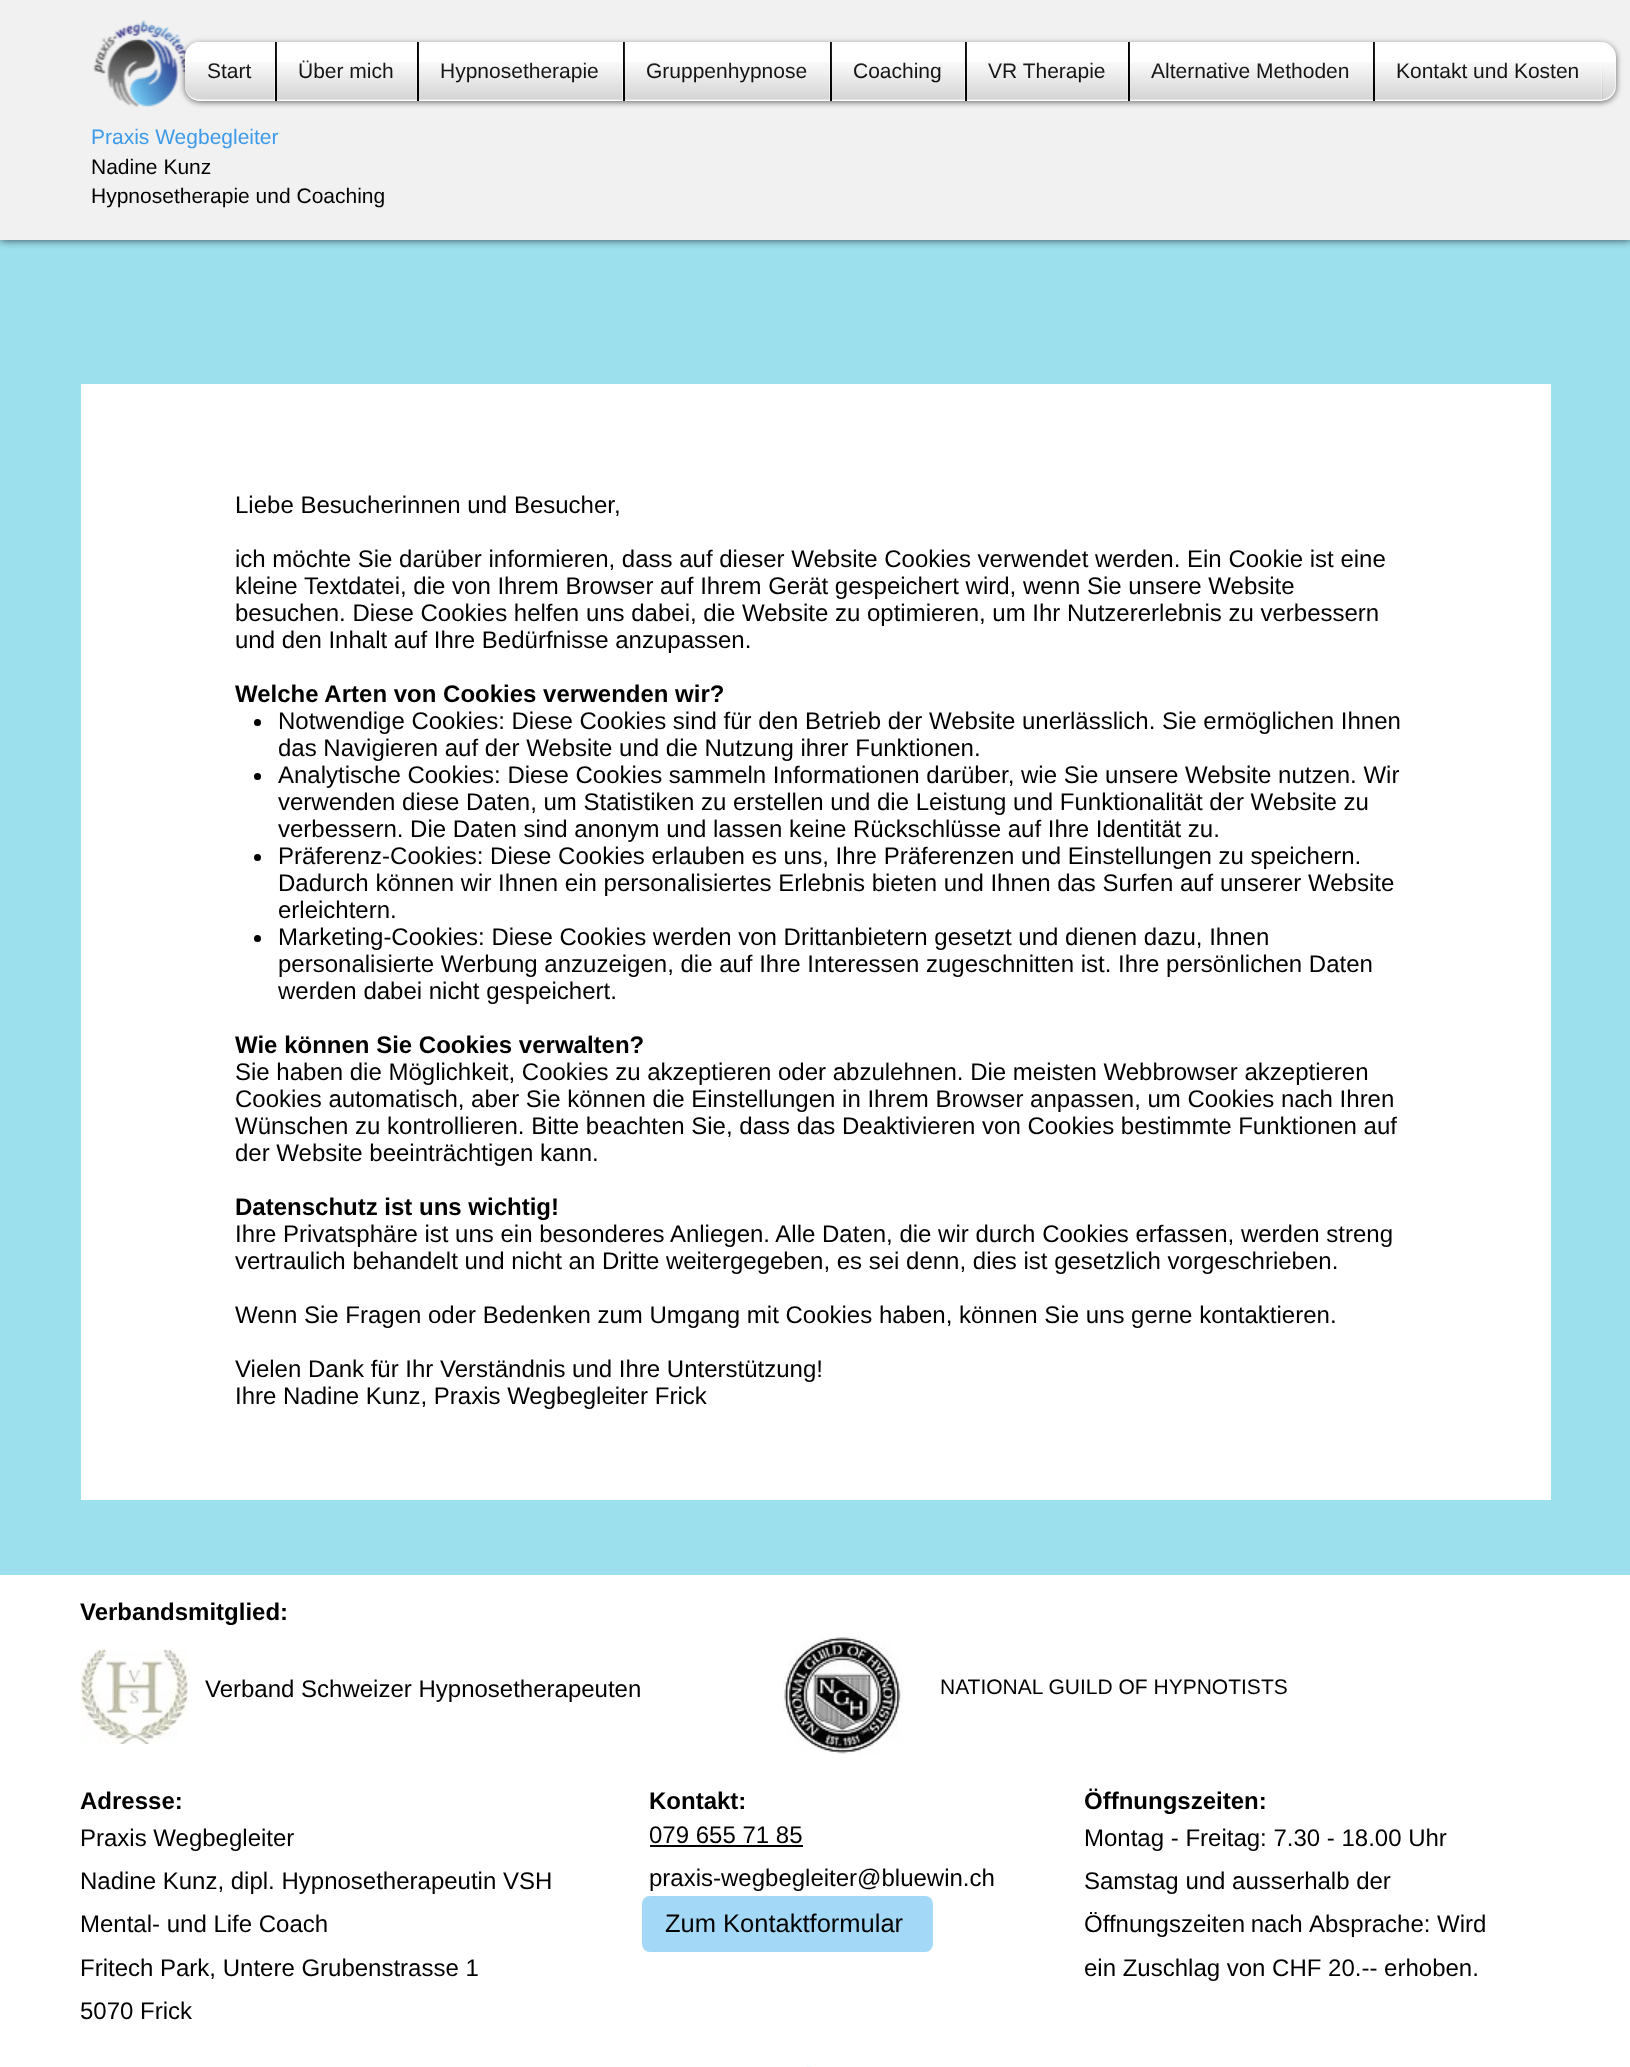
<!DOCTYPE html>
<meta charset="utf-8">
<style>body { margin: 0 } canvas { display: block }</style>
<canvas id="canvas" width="1630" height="2067"></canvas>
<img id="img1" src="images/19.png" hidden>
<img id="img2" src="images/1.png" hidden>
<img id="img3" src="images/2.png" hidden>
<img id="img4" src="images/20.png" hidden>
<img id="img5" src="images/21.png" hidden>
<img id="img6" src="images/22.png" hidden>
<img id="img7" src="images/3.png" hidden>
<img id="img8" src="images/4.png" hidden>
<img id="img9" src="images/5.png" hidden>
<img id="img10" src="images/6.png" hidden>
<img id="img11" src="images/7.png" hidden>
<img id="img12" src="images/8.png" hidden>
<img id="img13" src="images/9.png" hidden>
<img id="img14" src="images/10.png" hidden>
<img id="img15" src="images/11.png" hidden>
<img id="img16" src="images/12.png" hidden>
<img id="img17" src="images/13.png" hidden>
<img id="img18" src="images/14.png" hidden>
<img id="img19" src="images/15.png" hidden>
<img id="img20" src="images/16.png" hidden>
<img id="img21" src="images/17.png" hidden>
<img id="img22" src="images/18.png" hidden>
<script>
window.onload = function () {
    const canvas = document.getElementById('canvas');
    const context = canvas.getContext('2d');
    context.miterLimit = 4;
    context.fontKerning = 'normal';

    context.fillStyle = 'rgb(156, 223, 237)';
    context.fillRect(0, 0, 1630, 2067);
    context.fillStyle = 'rgba(0, 0, 0, 0.7)';
    context.filter = 'blur(4px)';
    context.beginPath();
    context.rect(0, 0, 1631, 240);
    context.fill();
    context.filter = 'none';
    context.fillStyle = 'rgb(241, 241, 241)';
    context.fillRect(0, 0, 1630, 240);
    context.drawImage(document.getElementById('img1'), 93, 20, 94, 88);
    context.fillStyle = 'rgba(0, 0, 0, 0.6)';
    context.filter = 'blur(3px)';
    context.beginPath();
    context.roundRect(185, 44, 1431, 58, 15);
    context.fill();
    context.filter = 'none';
    context.fillStyle = 'rgb(255, 255, 255)';
    context.beginPath();
    context.roundRect(185, 42, 1431, 59, 15);
    context.fill();
    context.drawImage(document.getElementById('img2'), 184, 42, 11, 25);
    context.drawImage(document.getElementById('img3'), 185, 62, 1431, 38);
    context.beginPath();
    context.roundRect(185, 42, 90, 59, [15, 0, 0, 15]);
    context.fill();
    context.fillRect(277, 62, 140, 38);
    context.fillStyle = 'rgb(0, 0, 0)';
    context.fillRect(275, 42, 2, 59);
    context.fillStyle = 'rgb(255, 255, 255)';
    context.fillRect(419, 62, 204, 38);
    context.fillStyle = 'rgb(0, 0, 0)';
    context.fillRect(417, 42, 2, 59);
    context.fillStyle = 'rgb(255, 255, 255)';
    context.fillRect(625, 62, 205, 38);
    context.fillStyle = 'rgb(0, 0, 0)';
    context.fillRect(623, 42, 2, 59);
    context.fillStyle = 'rgb(255, 255, 255)';
    context.fillRect(832, 62, 133, 38);
    context.fillStyle = 'rgb(0, 0, 0)';
    context.fillRect(830, 42, 2, 59);
    context.fillStyle = 'rgb(255, 255, 255)';
    context.fillRect(967, 62, 161, 38);
    context.fillStyle = 'rgb(0, 0, 0)';
    context.fillRect(965, 42, 2, 59);
    context.fillStyle = 'rgb(255, 255, 255)';
    context.fillRect(1130, 62, 243, 38);
    context.fillStyle = 'rgb(0, 0, 0)';
    context.fillRect(1128, 42, 2, 59);
    context.fillStyle = 'rgb(255, 255, 255)';
    context.fillRect(1375, 62, 227, 38);
    context.fillStyle = 'rgb(0, 0, 0)';
    context.fillRect(1373, 42, 2, 59);
    context.fillStyle = 'rgb(255, 255, 255)';
    context.fillRect(81, 384, 1470, 1116);
    context.fillStyle = 'rgb(0, 0, 0)';
    context.beginPath();
    context.arc(257.5, 722.5, 3.5, 0, 2 * Math.PI);
    context.fill();
    context.beginPath();
    context.arc(257.5, 776.5, 3.5, 0, 2 * Math.PI);
    context.fill();
    context.beginPath();
    context.arc(257.5, 857.5, 3.5, 0, 2 * Math.PI);
    context.fill();
    context.beginPath();
    context.arc(257.5, 938.5, 3.5, 0, 2 * Math.PI);
    context.fill();
    context.fillStyle = 'rgb(255, 255, 255)';
    context.fillRect(0, 1575, 1630, 492);
    context.drawImage(document.getElementById('img4'), 81, 1649, 107, 95);
    context.drawImage(document.getElementById('img5'), 783, 1636, 120, 120);
    context.fillStyle = 'rgb(0, 0, 0)';
    context.fillRect(650, 1845, 153, 2);
    context.fillStyle = 'rgb(163, 217, 246)';
    context.beginPath();
    context.roundRect(642, 1896, 291, 56, 8);
    context.fill();
    context.drawImage(document.getElementById('img6'), 807, 2066, 5, 1);
    context.font = '21px Liberation Sans';
    context.fillStyle = 'rgb(0, 0, 0)';
    context.fillText('Start', 207, 78);
    context.drawImage(document.getElementById('img7'), 185, 51, 66, 27);
    context.drawImage(document.getElementById('img8'), 185, 62, 90, 38);
    context.fillText('Über mich', 298, 78);
    context.drawImage(document.getElementById('img9'), 275, 42, 118, 47);
    context.drawImage(document.getElementById('img10'), 277, 62, 140, 38);
    context.fillText('Hypnosetherapie', 440, 78);
    context.drawImage(document.getElementById('img11'), 418, 42, 180, 43);
    context.drawImage(document.getElementById('img12'), 419, 62, 204, 38);
    context.fillText('Gruppenhypnose', 646, 78);
    context.drawImage(document.getElementById('img13'), 623, 42, 183, 46);
    context.drawImage(document.getElementById('img14'), 625, 62, 205, 38);
    context.fillText('Coaching', 853, 78);
    context.drawImage(document.getElementById('img15'), 830, 42, 110, 46);
    context.drawImage(document.getElementById('img16'), 832, 62, 133, 38);
    context.fillText('VR Therapie', 988, 78);
    context.drawImage(document.getElementById('img17'), 965, 42, 140, 46);
    context.drawImage(document.getElementById('img18'), 967, 62, 161, 38);
    context.fillText('Alternative Methoden', 1151, 78);
    context.drawImage(document.getElementById('img19'), 1129, 42, 220, 43);
    context.drawImage(document.getElementById('img20'), 1130, 62, 243, 38);
    context.fillText('Kontakt und Kosten', 1396, 78);
    context.drawImage(document.getElementById('img21'), 1373, 42, 205, 46);
    context.drawImage(document.getElementById('img22'), 1375, 62, 228, 38);
    context.fillStyle = 'rgb(61, 155, 233)';
    context.fillText('Praxis Wegbegleiter', 91, 144);
    context.fillStyle = 'rgb(0, 0, 0)';
    context.fillText('Nadine Kunz', 91, 174);
    context.fillText('Hypnosetherapie und Coaching', 91, 203);
    context.font = '24px Liberation Sans';
    context.fillText('Liebe Besucherinnen und Besucher,', 235, 513);
    context.fillText('ich möchte Sie darüber informieren, dass auf dieser Website Cookies verwendet werden. Ein Cookie ist eine', 235, 567);
    context.fillText('kleine Textdatei, die von Ihrem Browser auf Ihrem Gerät gespeichert wird, wenn Sie unsere Website', 235, 594);
    context.fillText('besuchen. Diese Cookies helfen uns dabei, die Website zu optimieren, um Ihr Nutzererlebnis zu verbessern', 235, 621);
    context.fillText('und den Inhalt auf Ihre Bedürfnisse anzupassen.', 235, 648);
    context.font = 'bold 24px Liberation Sans';
    context.fillText('Welche Arten von Cookies verwenden wir?', 235, 702);
    context.font = '24px Liberation Sans';
    context.fillText('Notwendige Cookies: Diese Cookies sind für den Betrieb der Website unerlässlich. Sie ermöglichen Ihnen', 278, 729);
    context.fillText('das Navigieren auf der Website und die Nutzung ihrer Funktionen.', 278, 756);
    context.fillText('Analytische Cookies: Diese Cookies sammeln Informationen darüber, wie Sie unsere Website nutzen. Wir', 278, 783);
    context.fillText('verwenden diese Daten, um Statistiken zu erstellen und die Leistung und Funktionalität der Website zu', 278, 810);
    context.fillText('verbessern. Die Daten sind anonym und lassen keine Rückschlüsse auf Ihre Identität zu.', 278, 837);
    context.fillText('Präferenz-Cookies: Diese Cookies erlauben es uns, Ihre Präferenzen und Einstellungen zu speichern.', 278, 864);
    context.fillText('Dadurch können wir Ihnen ein personalisiertes Erlebnis bieten und Ihnen das Surfen auf unserer Website', 278, 891);
    context.fillText('erleichtern.', 278, 918);
    context.fillText('Marketing-Cookies: Diese Cookies werden von Drittanbietern gesetzt und dienen dazu, Ihnen', 278, 945);
    context.fillText('personalisierte Werbung anzuzeigen, die auf Ihre Interessen zugeschnitten ist. Ihre persönlichen Daten', 278, 972);
    context.fillText('werden dabei nicht gespeichert.', 278, 999);
    context.font = 'bold 24px Liberation Sans';
    context.fillText('Wie können Sie Cookies verwalten?', 235, 1053);
    context.font = '24px Liberation Sans';
    context.fillText('Sie haben die Möglichkeit, Cookies zu akzeptieren oder abzulehnen. Die meisten Webbrowser akzeptieren', 235, 1080);
    context.fillText('Cookies automatisch, aber Sie können die Einstellungen in Ihrem Browser anpassen, um Cookies nach Ihren', 235, 1107);
    context.fillText('Wünschen zu kontrollieren. Bitte beachten Sie, dass das Deaktivieren von Cookies bestimmte Funktionen auf', 235, 1134);
    context.fillText('der Website beeinträchtigen kann.', 235, 1161);
    context.font = 'bold 24px Liberation Sans';
    context.fillText('Datenschutz ist uns wichtig!', 235, 1215);
    context.font = '24px Liberation Sans';
    context.fillText('Ihre Privatsphäre ist uns ein besonderes Anliegen. Alle Daten, die wir durch Cookies erfassen, werden streng', 235, 1242);
    context.fillText('vertraulich behandelt und nicht an Dritte weitergegeben, es sei denn, dies ist gesetzlich vorgeschrieben.', 235, 1269);
    context.fillText('Wenn Sie Fragen oder Bedenken zum Umgang mit Cookies haben, können Sie uns gerne kontaktieren.', 235, 1323);
    context.fillText('Vielen Dank für Ihr Verständnis und Ihre Unterstützung!', 235, 1377);
    context.fillText('Ihre Nadine Kunz, Praxis Wegbegleiter Frick', 235, 1404);
    context.font = 'bold 24px Liberation Sans';
    context.fillText('Verbandsmitglied:', 80, 1620);
    context.font = '24px Liberation Sans';
    context.fillText('Verband Schweizer Hypnosetherapeuten', 205, 1697);
    context.font = '21px Liberation Sans';
    context.fillText('NATIONAL GUILD OF HYPNOTISTS', 940, 1694);
    context.font = 'bold 24px Liberation Sans';
    context.fillText('Adresse:', 80, 1809);
    context.fillText('Kontakt:', 649, 1809);
    context.fillText('Öffnungszeiten:', 1084, 1809);
    context.font = '24px Liberation Sans';
    context.fillText('Praxis Wegbegleiter', 80, 1846);
    context.fillText('Nadine Kunz, dipl. Hypnosetherapeutin VSH', 80, 1889);
    context.fillText('Mental- und Life Coach', 80, 1932);
    context.fillText('Fritech Park, Untere Grubenstrasse 1', 80, 1976);
    context.fillText('5070 Frick', 80, 2019);
    context.fillText('079 655 71 85', 649, 1843);
    context.fillText('praxis-wegbegleiter@bluewin.ch', 649, 1886);
    context.fillText('Montag - Freitag: 7.30 - 18.00 Uhr', 1084, 1846);
    context.fillText('Samstag und ausserhalb der', 1084, 1889);
    context.wordSpacing = '-1px';
    context.fillText('Öffnungszeiten nach', 1084, 1932);
    context.wordSpacing = '0px';
    context.fillText('Absprache: Wird', 1309, 1932);
    context.fillText('ein Zuschlag von CHF 20.-- erhoben.', 1084, 1976);
    context.font = '25.5px Liberation Sans';
    context.fillText('Zum Kontaktformular', 665, 1932);
};
</script>
